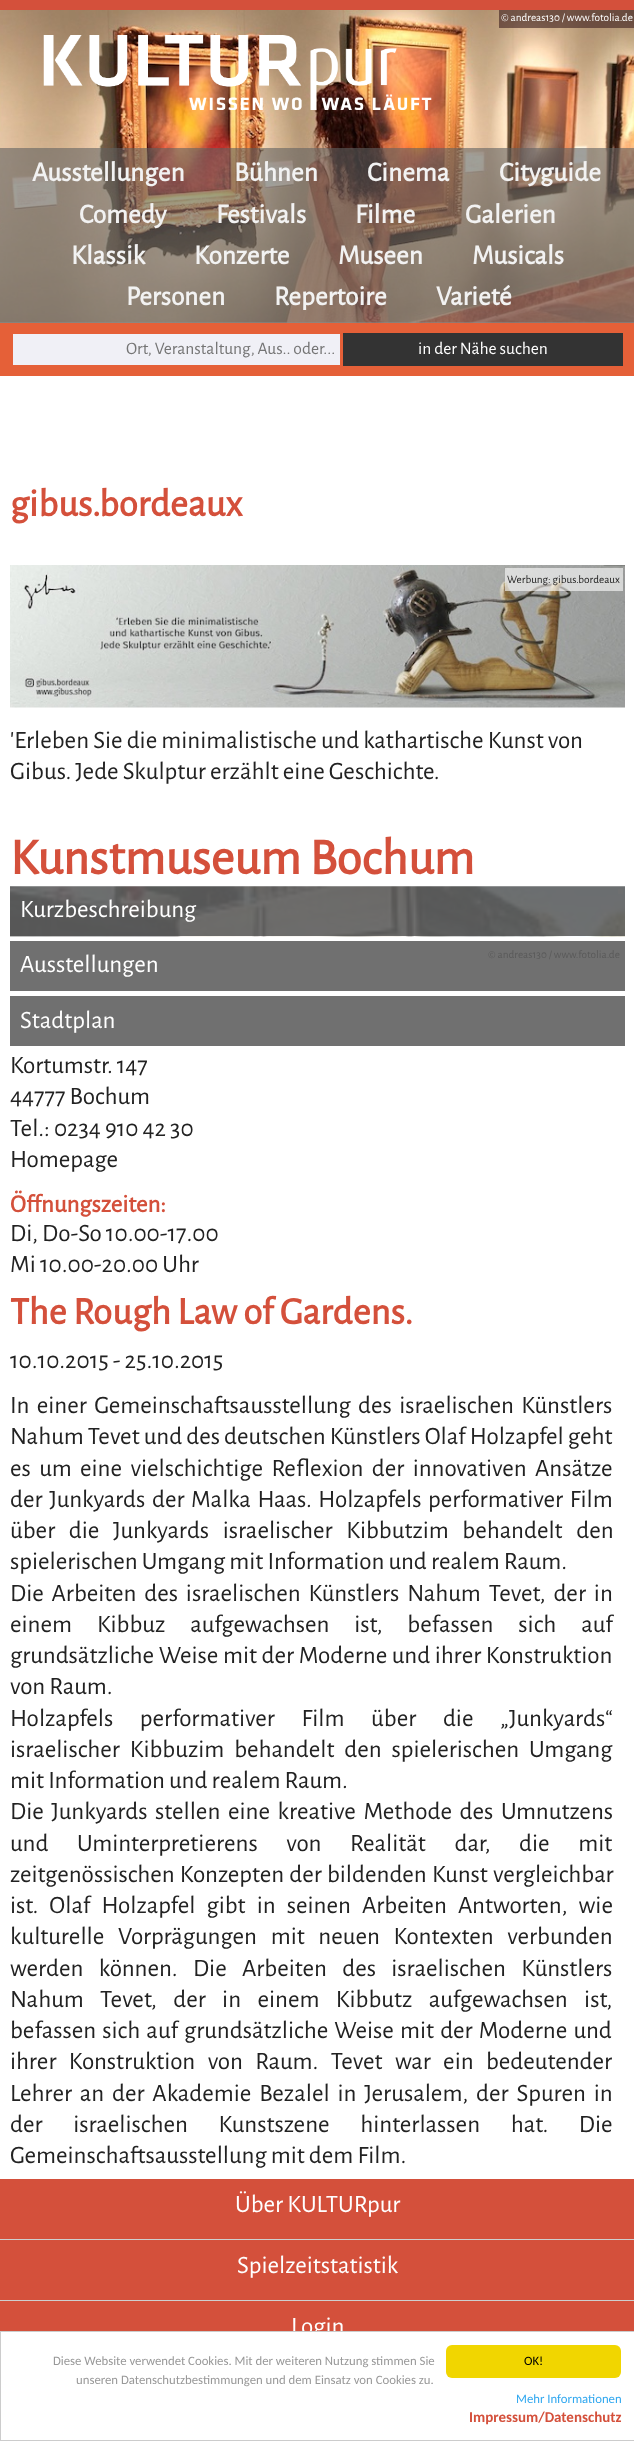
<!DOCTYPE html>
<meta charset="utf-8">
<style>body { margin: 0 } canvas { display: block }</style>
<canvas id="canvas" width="634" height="2441"></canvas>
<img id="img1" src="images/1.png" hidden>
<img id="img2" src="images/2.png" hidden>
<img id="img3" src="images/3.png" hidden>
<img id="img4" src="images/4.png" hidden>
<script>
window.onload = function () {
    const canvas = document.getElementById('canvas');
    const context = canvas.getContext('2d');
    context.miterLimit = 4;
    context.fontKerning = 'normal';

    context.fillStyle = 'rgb(255, 255, 255)';
    context.fillRect(0, 0, 634, 2441);
    context.fillStyle = 'rgb(112, 112, 112)';
    context.fillRect(10, 941, 615, 50);
    context.fillStyle = 'rgb(212, 80, 59)';
    context.fillRect(0, 0, 634, 10);
    context.fillStyle = 'rgb(206, 206, 206)';
    context.fillRect(0, 322, 634, 1);
    context.drawImage(document.getElementById('img1'), 0, 10, 634, 313);
    context.fillStyle = 'rgba(60, 30, 30, 0.6)';
    context.fillRect(499, 10, 135, 18);
    context.drawImage(document.getElementById('img2'), 43, 35, 389, 75);
    context.fillStyle = 'rgba(96, 96, 96, 0.6)';
    context.fillRect(0, 148, 634, 175);
    context.fillStyle = 'rgb(229, 96, 56)';
    context.fillRect(0, 323, 634, 53);
    context.fillStyle = 'rgb(240, 240, 246)';
    context.fillRect(13, 334, 327, 31);
    context.fillStyle = 'rgb(51, 51, 51)';
    context.fillRect(343, 333, 280, 33);
    context.drawImage(document.getElementById('img3'), 10, 565, 615, 143);
    context.fillStyle = 'rgba(255, 255, 255, 0.6)';
    context.fillRect(505, 568, 118, 23);
    context.drawImage(document.getElementById('img4'), 10, 886, 615, 51);
    context.fillStyle = 'rgba(112, 112, 112, 0.6)';
    context.fillRect(618, 889, 5, 5);
    context.fillStyle = 'rgb(112, 112, 112)';
    context.fillRect(10, 996, 615, 50);
    context.fillStyle = 'rgb(212, 80, 59)';
    context.fillRect(0, 2179, 634, 152);
    context.fillStyle = 'rgb(206, 206, 206)';
    context.fillRect(0, 2239, 634, 1);
    context.fillRect(0, 2300, 634, 1);
    context.font = '11.25px Alegreya Sans';
    context.fillStyle = 'rgb(255, 255, 255)';
    context.fillText('© andreas130 / www.fotolia.de', 501, 21);
    context.font = 'bold 27.5px Alegreya Sans';
    context.fillStyle = 'rgb(242, 242, 242)';
    context.fillText('Ausstellungen', 32, 181);
    context.fillText('Bühnen', 234, 181);
    context.fillText('Cinema', 367, 181);
    context.fillText('Cityguide', 499, 181);
    context.fillText('Comedy', 79, 223);
    context.fillText('Festivals', 216, 223);
    context.fillText('Filme', 355, 223);
    context.fillText('Galerien', 465, 223);
    context.fillText('Klassik', 71, 264);
    context.fillText('Konzerte', 194, 264);
    context.fillText('Museen', 338, 264);
    context.fillText('Musicals', 472, 264);
    context.fillText('Personen', 126, 305);
    context.fillText('Repertoire', 274, 305);
    context.fillText('Varieté', 436, 305);
    context.font = '17.5px Alegreya Sans';
    context.fillStyle = 'rgb(117, 117, 117)';
    context.fillText('Ort, Veranstaltung, Aus.. oder...', 126, 354);
    context.fillStyle = 'rgb(255, 255, 255)';
    context.fillText('in der Nähe suchen', 418, 354);
    context.font = 'bold 38.75px Alegreya Sans';
    context.fillStyle = 'rgb(212, 80, 59)';
    context.fillText('gibus.bordeaux', 10, 516);
    context.font = '11.25px Alegreya Sans';
    context.fillStyle = 'rgb(34, 34, 34)';
    context.fillText('Werbung: gibus.bordeaux', 507, 583);
    context.font = '25px Alegreya Sans';
    context.fillText('\'Erleben Sie die minimalistische und kathartische Kunst von', 10, 748);
    context.fillText('Gibus. Jede Skulptur erzählt eine Geschichte.', 10, 779);
    context.font = 'bold 51.25px Alegreya Sans';
    context.fillStyle = 'rgb(212, 80, 59)';
    context.fillText('Kunstmuseum Bochum', 10, 874);
    context.font = '25px Alegreya Sans';
    context.fillStyle = 'rgb(255, 255, 255)';
    context.fillText('Kurzbeschreibung', 20, 917);
    context.fillText('Ausstellungen', 20, 972);
    context.font = '11.25px Alegreya Sans';
    context.fillStyle = 'rgb(90, 90, 90)';
    context.fillText('© andreas130 / www.fotolia.de', 488, 958);
    context.font = '25px Alegreya Sans';
    context.fillStyle = 'rgb(255, 255, 255)';
    context.fillText('Stadtplan', 20, 1028);
    context.fillStyle = 'rgb(34, 34, 34)';
    context.fillText('Kortumstr. 147', 10, 1073);
    context.fillText('44777 Bochum', 10, 1104);
    context.fillText('Tel.: 0234 910 42 30', 10, 1136);
    context.fillText('Homepage', 10, 1167);
    context.font = 'bold 25px Alegreya Sans';
    context.fillStyle = 'rgb(212, 80, 59)';
    context.fillText('Öffnungszeiten:', 10, 1212);
    context.font = '25px Alegreya Sans';
    context.fillStyle = 'rgb(34, 34, 34)';
    context.fillText('Di, Do-So 10.00-17.00', 10, 1241);
    context.fillText('Mi 10.00-20.00 Uhr', 10, 1272);
    context.font = 'bold 38.75px Alegreya Sans';
    context.fillStyle = 'rgb(212, 80, 59)';
    context.fillText('The Rough Law of Gardens.', 10, 1324);
    context.font = '25px Alegreya Sans';
    context.fillStyle = 'rgb(34, 34, 34)';
    context.fillText('10.10.2015 - 25.10.2015', 10, 1368);
    context.wordSpacing = '3.25px';
    context.fillText('In einer Gemeinschaftsausstellung des israelischen Künstlers', 10, 1413);
    context.wordSpacing = '0px';
    context.fillText('Nahum Tevet und des deutschen Künstlers Olaf Holzapfel geht', 10, 1444);
    context.wordSpacing = '4.25px';
    context.fillText('es um eine vielschichtige Reflexion der innovativen Ansätze', 10, 1476);
    context.wordSpacing = '2.5px';
    context.fillText('der Junkyards der Malka Haas. Holzapfels performativer Film', 10, 1507);
    context.wordSpacing = '9.5px';
    context.fillText('über die Junkyards israelischer Kibbutzim behandelt den', 10, 1538);
    context.wordSpacing = '0px';
    context.fillText('spielerischen Umgang mit Information und realem Raum.', 10, 1569);
    context.wordSpacing = '3.75px';
    context.fillText('Die Arbeiten des israelischen Künstlers Nahum Tevet, der in', 10, 1601);
    context.wordSpacing = '20.75px';
    context.fillText('einem Kibbuz aufgewachsen ist, befassen sich auf', 10, 1632);
    context.wordSpacing = '0.5px';
    context.fillText('grundsätzliche Weise mit der Moderne und ihrer Konstruktion', 10, 1663);
    context.wordSpacing = '0px';
    context.fillText('von Raum.', 10, 1694);
    context.wordSpacing = '22.5px';
    context.fillText('Holzapfels performativer Film über die „Junkyards“', 10, 1726);
    context.wordSpacing = '5.75px';
    context.fillText('israelischer Kibbuzim behandelt den spielerischen Umgang', 10, 1757);
    context.wordSpacing = '0px';
    context.fillText('mit Information und realem Raum.', 10, 1788);
    context.wordSpacing = '3.5px';
    context.fillText('Die Junkyards stellen eine kreative Methode des Umnutzens', 10, 1819);
    context.wordSpacing = '24.5px';
    context.fillText('und Uminterpretierens von Realität dar, die mit', 10, 1851);
    context.wordSpacing = '1px';
    context.fillText('zeitgenössischen Konzepten der bildenden Kunst vergleichbar', 10, 1882);
    context.wordSpacing = '7px';
    context.fillText('ist. Olaf Holzapfel gibt in seinen Arbeiten Antworten, wie', 10, 1913);
    context.wordSpacing = '9.5px';
    context.fillText('kulturelle Vorprägungen mit neuen Kontexten verbunden', 10, 1944);
    context.wordSpacing = '11.25px';
    context.fillText('werden können. Die Arbeiten des israelischen Künstlers', 10, 1976);
    context.wordSpacing = '12.25px';
    context.fillText('Nahum Tevet, der in einem Kibbutz aufgewachsen ist,', 10, 2007);
    context.wordSpacing = '2px';
    context.fillText('befassen sich auf grundsätzliche Weise mit der Moderne und', 10, 2038);
    context.wordSpacing = '8.25px';
    context.fillText('ihrer Konstruktion von Raum. Tevet war ein bedeutender', 10, 2069);
    context.wordSpacing = '3.75px';
    context.fillText('Lehrer an der Akademie Bezalel in Jerusalem, der Spuren in', 10, 2101);
    context.wordSpacing = '26.5px';
    context.fillText('der israelischen Kunstszene hinterlassen hat. Die', 10, 2132);
    context.wordSpacing = '0px';
    context.fillText('Gemeinschaftsausstellung mit dem Film.', 10, 2163);
    context.fillStyle = 'rgb(255, 255, 255)';
    context.fillText('Über KULTURpur', 235, 2212);
    context.fillText('Spielzeitstatistik', 237, 2273);
    context.fillText('Login', 291, 2334);
    context.strokeStyle = 'rgb(204, 204, 204)';
    context.strokeRect(0.5, 2331.5, 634, 109);
    context.font = '12.75px Carlito';
    context.fillStyle = 'rgb(153, 153, 153)';
    context.fillText('Diese Website verwendet Cookies. Mit der weiteren Nutzung stimmen Sie', 53, 2365);
    context.fillText('unseren Datenschutzbestimmungen und dem Einsatz von Cookies zu.', 76, 2384);
    context.fillStyle = 'rgb(49, 168, 240)';
    context.fillText('Mehr Informationen', 516, 2403);
    context.font = 'bold 15px Carlito';
    context.fillStyle = 'rgb(212, 80, 59)';
    context.fillText('Impressum/Datenschutz', 469, 2422);
    context.fillStyle = 'rgb(241, 214, 0)';
    context.beginPath();
    context.roundRect(446, 2345, 175, 33, 6);
    context.fill();
    context.font = '12.75px Carlito';
    context.fillStyle = 'rgb(0, 0, 0)';
    context.fillText('OK!', 524, 2365);
};
</script>
